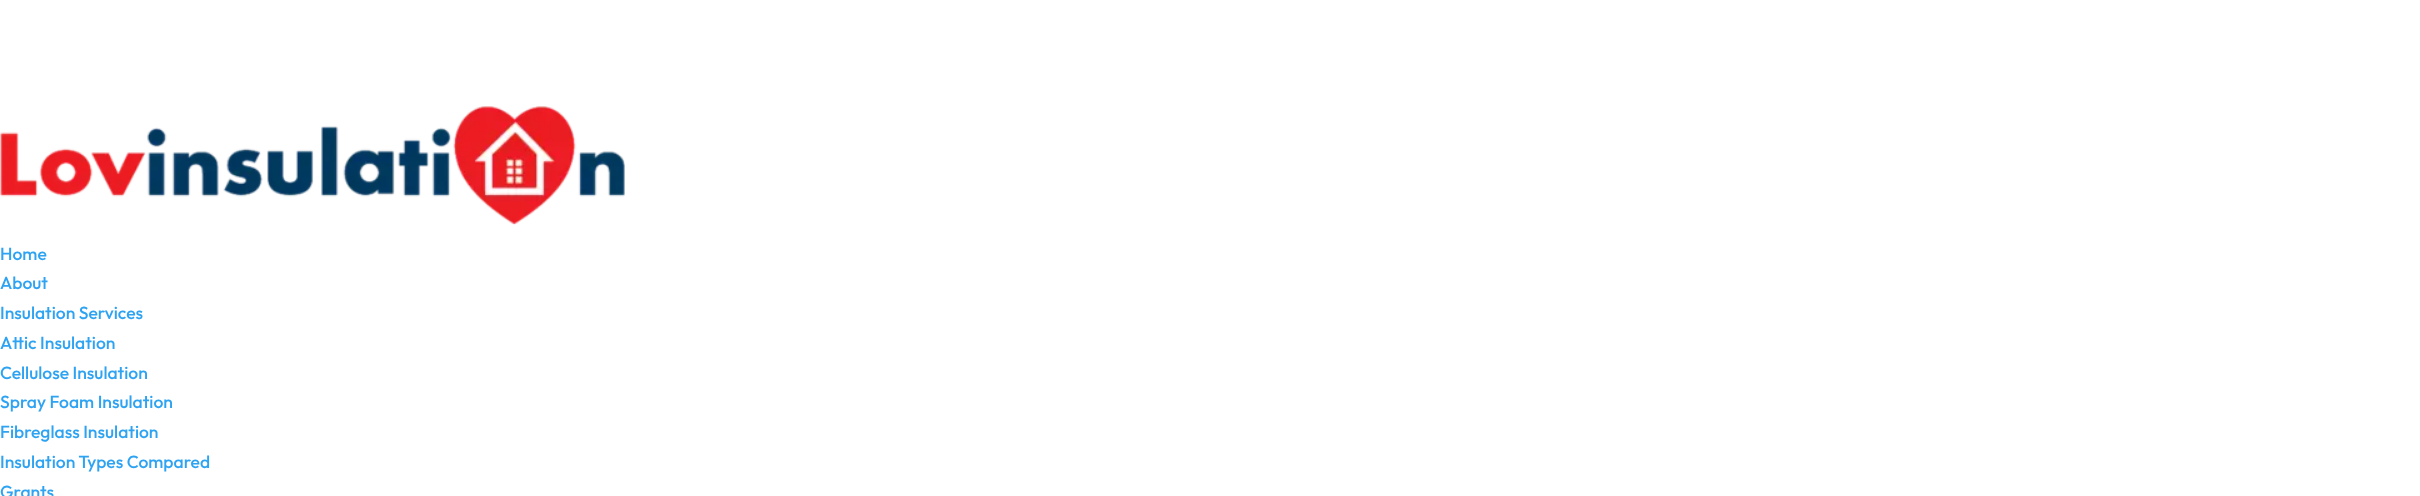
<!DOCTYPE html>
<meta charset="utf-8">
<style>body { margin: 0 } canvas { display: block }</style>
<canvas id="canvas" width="2420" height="496"></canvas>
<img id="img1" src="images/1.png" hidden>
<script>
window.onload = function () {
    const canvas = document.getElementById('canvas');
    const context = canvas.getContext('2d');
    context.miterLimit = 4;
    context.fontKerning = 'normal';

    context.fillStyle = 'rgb(255, 255, 255)';
    context.fillRect(0, 0, 2420, 496);
    context.drawImage(document.getElementById('img1'), 0, 106, 625, 119);
    context.font = '500 17.5px Outfit';
    context.fillStyle = 'rgb(46, 163, 242)';
    context.fillText('Home', 0, 260);
    context.fillText('About', 0, 289);
    context.fillText('Insulation Services', 0, 319);
    context.fillText('Attic Insulation', 0, 349);
    context.fillText('Cellulose Insulation', 0, 379);
    context.fillText('Spray Foam Insulation', 0, 408);
    context.fillText('Fibreglass Insulation', 0, 438);
    context.fillText('Insulation Types Compared', 0, 468);
    context.fillText('Grants', 0, 498);
};
</script>
